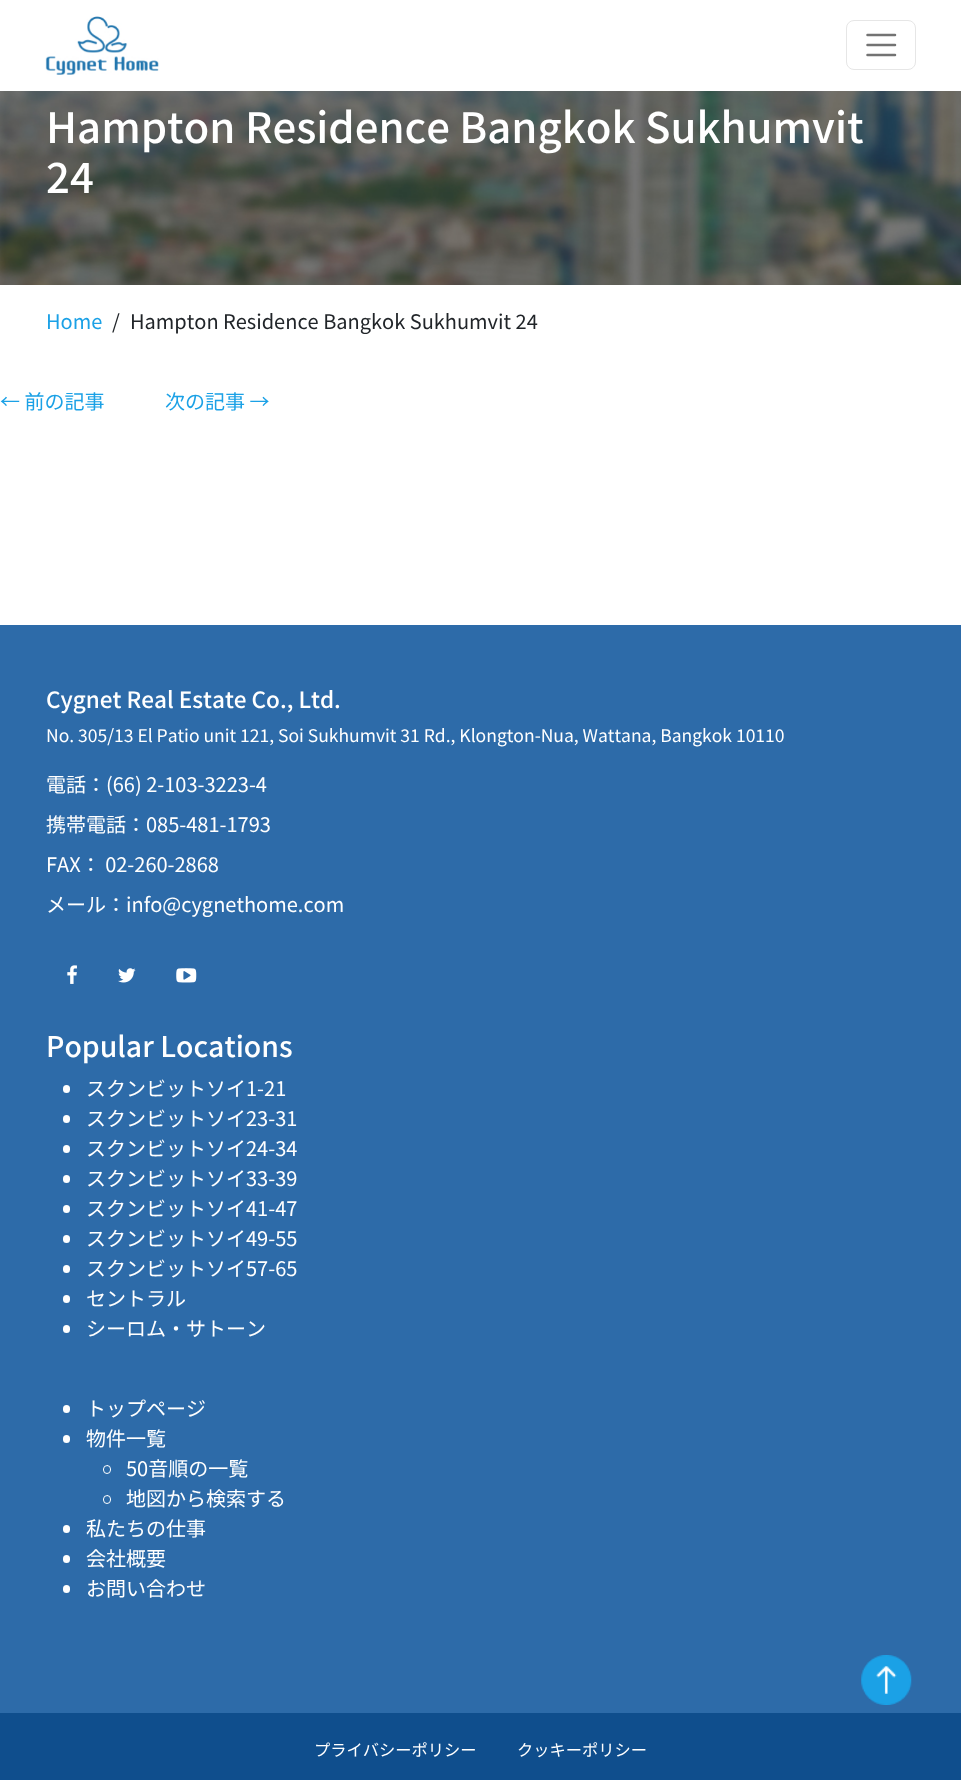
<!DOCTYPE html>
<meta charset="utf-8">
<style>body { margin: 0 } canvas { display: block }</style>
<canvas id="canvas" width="961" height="1780"></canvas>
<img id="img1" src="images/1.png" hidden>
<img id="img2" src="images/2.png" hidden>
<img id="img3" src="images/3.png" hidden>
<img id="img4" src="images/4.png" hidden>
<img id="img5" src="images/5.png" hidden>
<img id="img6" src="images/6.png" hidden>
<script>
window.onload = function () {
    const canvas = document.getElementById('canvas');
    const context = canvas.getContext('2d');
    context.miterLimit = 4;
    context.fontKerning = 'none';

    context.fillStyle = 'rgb(255, 255, 255)';
    context.fillRect(0, 0, 961, 1780);
    context.drawImage(document.getElementById('img1'), 45, 16, 114, 59);
    context.beginPath();
    context.roundRect(846.5, 20.5, 69, 49, 7.5);
    context.strokeStyle = 'rgb(230, 230, 230)';
    context.stroke();
    context.beginPath();
    context.moveTo(867.5, 35);
    context.lineTo(895, 35);
    context.moveTo(867.5, 45);
    context.lineTo(895, 45);
    context.moveTo(867.5, 55);
    context.lineTo(895, 55);
    context.strokeStyle = 'rgb(115, 115, 115)';
    context.lineWidth = 2.5;
    context.lineCap = 'round';
    context.stroke();
    context.drawImage(document.getElementById('img2'), 0, 91, 961, 194);
    context.fillStyle = 'rgb(45, 107, 169)';
    context.fillRect(0, 625, 961, 1088);
    context.drawImage(document.getElementById('img3'), 67, 965, 10, 19);
    context.drawImage(document.getElementById('img4'), 118, 968, 18, 15);
    context.drawImage(document.getElementById('img5'), 176, 968, 21, 15);
    context.fillStyle = 'rgb(255, 255, 255)';
    context.beginPath();
    context.roundRect(63, 1085, 7, 8, 3.5);
    context.fill();
    context.beginPath();
    context.roundRect(63, 1115, 7, 8, 3.5);
    context.fill();
    context.beginPath();
    context.roundRect(63, 1145, 7, 8, 3.5);
    context.fill();
    context.beginPath();
    context.roundRect(63, 1175, 7, 8, 3.5);
    context.fill();
    context.beginPath();
    context.roundRect(63, 1205, 7, 8, 3.5);
    context.fill();
    context.beginPath();
    context.roundRect(63, 1235, 7, 8, 3.5);
    context.fill();
    context.beginPath();
    context.roundRect(63, 1265, 7, 8, 3.5);
    context.fill();
    context.beginPath();
    context.roundRect(63, 1295, 7, 8, 3.5);
    context.fill();
    context.beginPath();
    context.roundRect(63, 1325, 7, 8, 3.5);
    context.fill();
    context.beginPath();
    context.roundRect(63, 1405, 7, 8, 3.5);
    context.fill();
    context.beginPath();
    context.roundRect(63, 1435, 7, 8, 3.5);
    context.fill();
    context.beginPath();
    context.roundRect(103.5, 1465.5, 7, 8, 3.5);
    context.strokeStyle = 'rgb(255, 255, 255)';
    context.lineWidth = 1;
    context.stroke();
    context.beginPath();
    context.roundRect(103.5, 1495.5, 7, 8, 3.5);
    context.stroke();
    context.beginPath();
    context.roundRect(63, 1525, 7, 8, 3.5);
    context.fill();
    context.beginPath();
    context.roundRect(63, 1555, 7, 8, 3.5);
    context.fill();
    context.beginPath();
    context.roundRect(63, 1585, 7, 8, 3.5);
    context.fill();
    context.fillStyle = 'rgb(15, 78, 141)';
    context.fillRect(0, 1713, 961, 67);
    context.drawImage(document.getElementById('img6'), 861, 1655, 51, 50);
    context.font = '500 41.9px Noto Sans JP';
    context.fillStyle = 'rgb(255, 255, 255)';
    context.fillText('Hampton Residence Bangkok Sukhumvit', 46, 143);
    context.fillText('24', 46, 193);
    context.font = '20px Noto Sans JP';
    context.fillStyle = 'rgb(27, 161, 230)';
    context.fillText('Home', 46, 329);
    context.fillStyle = 'rgb(33, 37, 41)';
    context.fillText('/', 112, 329);
    context.fillText('Hampton Residence Bangkok Sukhumvit 24', 130, 329);
    context.fillStyle = 'rgb(27, 161, 230)';
    context.fillText('← 前の記事', 0, 409);
    context.fillText('次の記事 →', 165, 409);
    context.font = '500 22.5px Noto Sans JP';
    context.fillStyle = 'rgb(255, 255, 255)';
    context.fillText('Cygnet Real Estate Co., Ltd.', 46, 708);
    context.font = '17.5px Noto Sans JP';
    context.fillText('No. 305/13 El Patio unit 121, Soi Sukhumvit 31 Rd., Klongton-Nua, Wattana, Bangkok 10110', 46, 742);
    context.font = '20px Noto Sans JP';
    context.fillText('電話：(66) 2-103-3223-4', 46, 792);
    context.fillText('携帯電話：085-481-1793', 46, 832);
    context.fillText('FAX： 02-260-2868', 46, 872);
    context.fillText('メール：info@cygnethome.com', 46, 912);
    context.font = '500 28.4px Noto Sans JP';
    context.fillText('Popular Locations', 46, 1057);
    context.font = '20px Noto Sans JP';
    context.fillText('スクンビットソイ1-21', 86, 1096);
    context.fillText('スクンビットソイ23-31', 86, 1126);
    context.fillText('スクンビットソイ24-34', 86, 1156);
    context.fillText('スクンビットソイ33-39', 86, 1186);
    context.fillText('スクンビットソイ41-47', 86, 1216);
    context.fillText('スクンビットソイ49-55', 86, 1246);
    context.fillText('スクンビットソイ57-65', 86, 1276);
    context.fillText('セントラル', 86, 1306);
    context.fillText('シーロム・サトーン', 86, 1336);
    context.fillText('トップページ', 86, 1416);
    context.fillText('物件一覧', 86, 1446);
    context.fillText('50音順の一覧', 126, 1476);
    context.fillText('地図から検索する', 126, 1506);
    context.fillText('私たちの仕事', 86, 1536);
    context.fillText('会社概要', 86, 1566);
    context.fillText('お問い合わせ', 86, 1596);
    context.font = '16.25px Noto Sans JP';
    context.fillText('プライバシーポリシー', 314, 1756);
    context.fillText('クッキーポリシー', 517, 1756);
};
</script>
